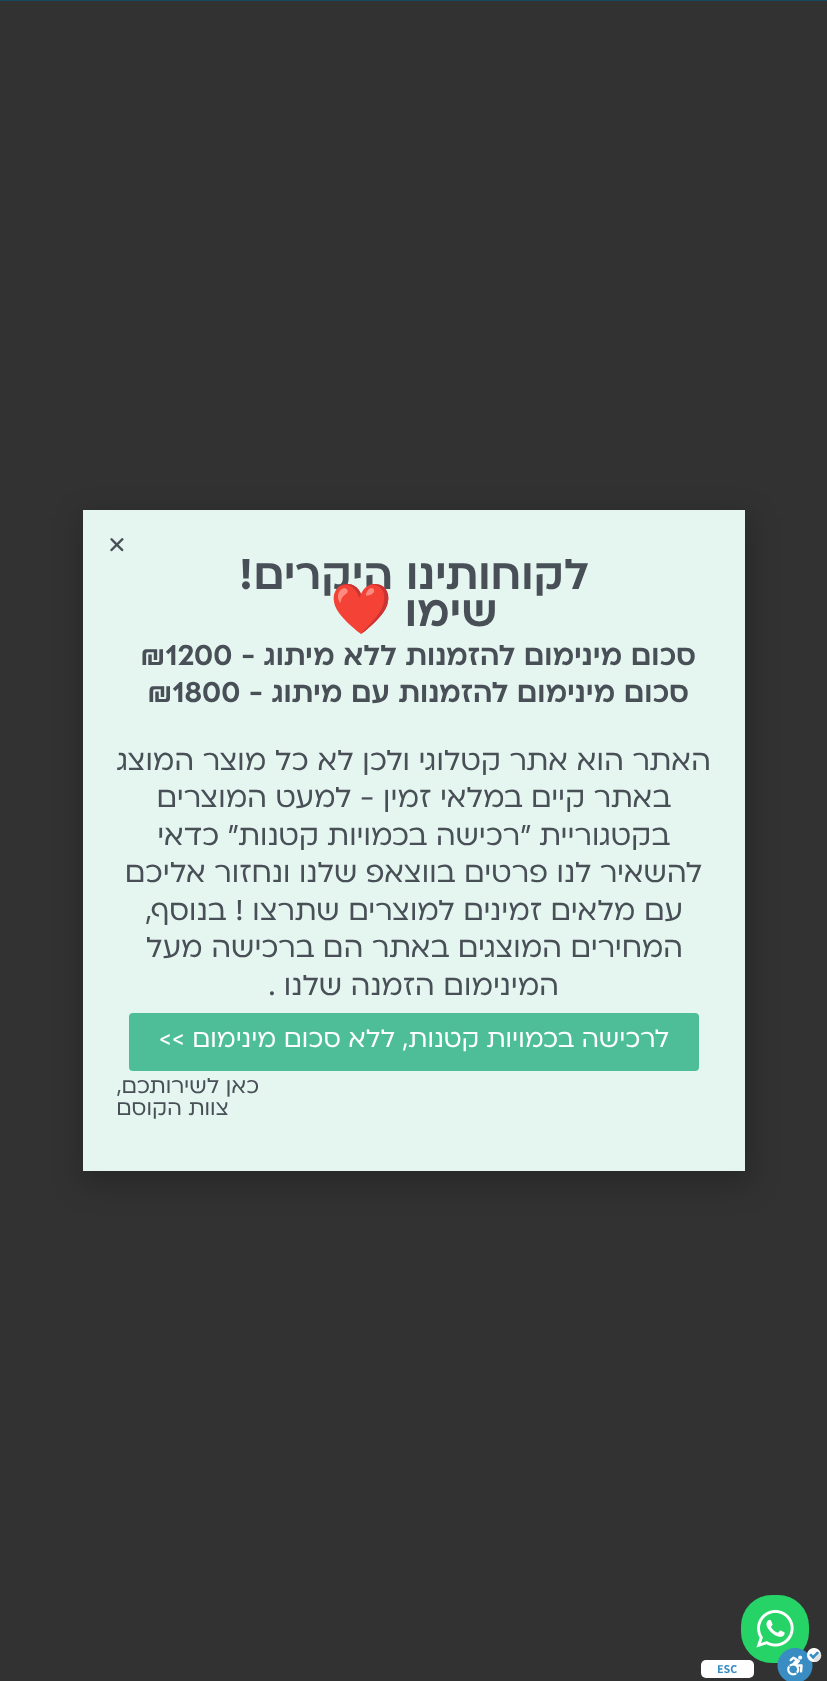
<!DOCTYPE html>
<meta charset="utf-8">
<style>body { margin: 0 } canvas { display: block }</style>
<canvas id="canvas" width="827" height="1681"></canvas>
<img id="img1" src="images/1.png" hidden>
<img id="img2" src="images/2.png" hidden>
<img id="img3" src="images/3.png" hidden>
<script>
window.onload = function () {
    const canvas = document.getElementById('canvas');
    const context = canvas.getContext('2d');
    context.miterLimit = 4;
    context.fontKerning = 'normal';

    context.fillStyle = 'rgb(50, 50, 50)';
    context.fillRect(0, 0, 827, 1681);
    context.fillStyle = 'rgba(0, 0, 0, 0.2)';
    context.filter = 'blur(14.5px)';
    context.beginPath();
    context.rect(81, 516, 670, 669);
    context.fill();
    context.filter = 'none';
    context.fillStyle = 'rgb(229, 246, 240)';
    context.fillRect(83, 510, 662, 661);
    context.drawImage(document.getElementById('img1'), 110, 538, 14, 14);
    context.fillStyle = 'rgb(78, 190, 152)';
    context.beginPath();
    context.roundRect(129, 1013, 570, 58, 4);
    context.fill();
    context.fillStyle = 'rgb(37, 211, 102)';
    context.beginPath();
    context.roundRect(741, 1595, 68, 68, 31);
    context.fill();
    context.drawImage(document.getElementById('img2'), 756, 1610, 38, 38);
    context.fillStyle = 'rgb(21, 73, 95)';
    context.fillRect(0, 0, 827, 1);
    context.drawImage(document.getElementById('img3'), 777, 1648, 45, 33);
    context.fillStyle = 'rgb(255, 255, 255)';
    context.beginPath();
    context.roundRect(701, 1660, 53, 18, 5);
    context.fill();
    context.direction = 'rtl';
    context.font = '600 49.75px "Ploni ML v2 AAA"';
    context.fillStyle = 'rgb(72, 79, 86)';
    context.fillText('לקוחותינו היקרים!', 589, 589);
    context.fillText('שימו', 497, 626);
    context.font = 'bold 49.75px Noto Color Emoji';
    context.fillText('❤️', 392, 626);
    context.font = '600 33.1px "Ploni ML v2 AAA"';
    context.fillText('סכום מינימום להזמנות ללא מיתוג -', 696, 665);
    context.direction = 'ltr';
    context.fillText('₪1200', 140, 665);
    context.direction = 'rtl';
    context.fillText('סכום מינימום להזמנות עם מיתוג -', 689, 702);
    context.direction = 'ltr';
    context.fillText('₪1800', 147, 702);
    context.direction = 'rtl';
    context.font = '33.1px "Ploni ML v2 AAA"';
    context.fillText('האתר הוא אתר קטלוגי ולכן לא כל מוצר המוצג', 711, 770);
    context.fillText('באתר קיים במלאי זמין - למעט המוצרים', 671, 807);
    context.fillText('בקטגוריית "רכישה בכמויות קטנות" כדאי', 670, 845);
    context.fillText('להשאיר לנו פרטים בווצאפ שלנו ונחזור אליכם', 702, 882);
    context.fillText('עם מלאים זמינים למוצרים שתרצו ! בנוסף,', 683, 920);
    context.fillText('המחירים המוצגים באתר הם ברכישה מעל', 683, 957);
    context.fillText('המינימום הזמנה שלנו .', 559, 995);
    context.font = '29px "Ploni ML v2 AAA"';
    context.fillStyle = 'rgb(255, 255, 255)';
    context.fillText('לרכישה בכמויות קטנות, ללא סכום מינימום >>', 669, 1047);
    context.font = '24.75px "Ploni ML v2 AAA"';
    context.fillStyle = 'rgb(72, 79, 86)';
    context.fillText('כאן לשירותכם,', 259, 1093);
    context.fillText('צוות הקוסם', 229, 1115);
    context.direction = 'ltr';
    context.font = 'bold 12px Assistant';
    context.fillStyle = 'rgb(58, 141, 194)';
    context.fillText('ESC', 717, 1673);
};
</script>
